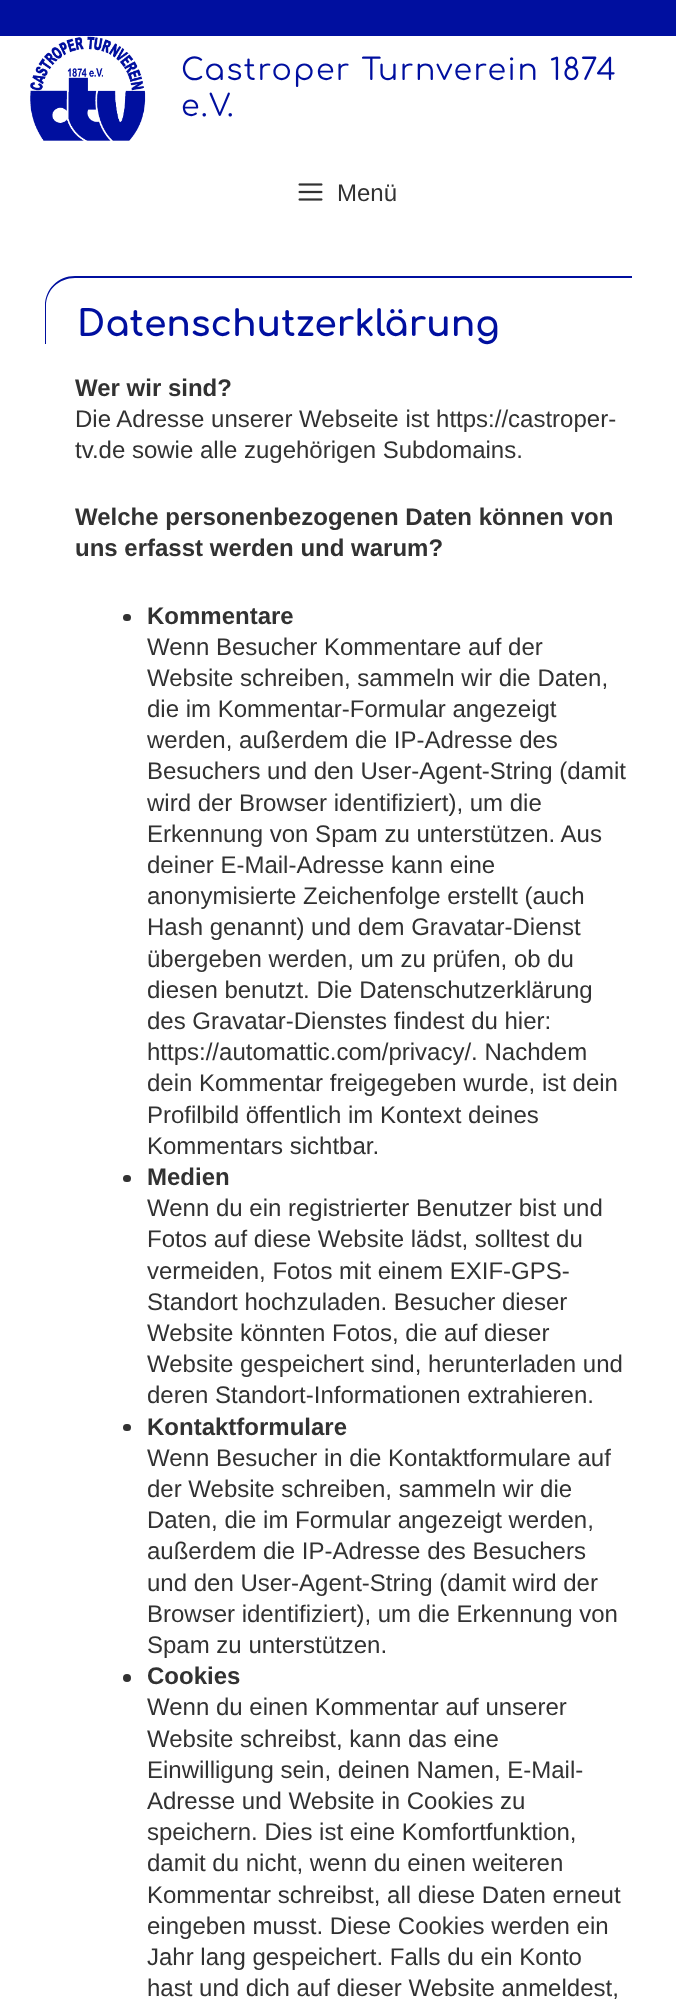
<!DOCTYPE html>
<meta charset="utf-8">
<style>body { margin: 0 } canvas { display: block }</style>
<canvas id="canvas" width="676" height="2001"></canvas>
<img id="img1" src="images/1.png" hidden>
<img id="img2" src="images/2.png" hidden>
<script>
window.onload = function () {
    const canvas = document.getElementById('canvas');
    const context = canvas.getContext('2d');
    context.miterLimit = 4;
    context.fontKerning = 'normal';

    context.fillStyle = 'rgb(255, 255, 255)';
    context.fillRect(0, 0, 676, 2001);
    context.fillStyle = 'rgb(0, 15, 159)';
    context.fillRect(0, 0, 676, 36);
    context.drawImage(document.getElementById('img1'), 30, 36, 116, 105);
    context.drawImage(document.getElementById('img2'), 298, 183, 25, 18);
    context.beginPath();
    context.moveTo(75, 276);
    context.lineTo(632, 276);
    context.lineTo(632, 344);
    context.lineTo(45, 344);
    context.lineTo(45, 306);
    context.bezierCurveTo(45, 289, 58, 276, 75, 276);
    context.closePath();
    context.moveTo(75, 278);
    context.lineTo(632, 278);
    context.lineTo(632, 344);
    context.lineTo(46, 344);
    context.lineTo(46, 306);
    context.bezierCurveTo(46, 290, 59, 278, 75, 278);
    context.closePath();
    context.fill('evenodd');
    context.fillStyle = 'rgb(50, 50, 50)';
    context.beginPath();
    context.roundRect(123, 614, 8, 7, 3.5);
    context.fill();
    context.beginPath();
    context.roundRect(123, 1175, 8, 7, 3.5);
    context.fill();
    context.beginPath();
    context.roundRect(123, 1424, 8, 7, 3.5);
    context.fill();
    context.beginPath();
    context.arc(127, 1678, 4, 0, 2 * Math.PI);
    context.fill();
    context.letterSpacing = '1.5px';
    context.font = '30px Comfortaa';
    context.fillStyle = 'rgb(0, 15, 159)';
    context.fillText('Castroper Turnverein 1874', 181, 80);
    context.fillText('e.V.', 181, 116);
    context.letterSpacing = '0px';
    context.font = '24px Liberation Sans';
    context.fillStyle = 'rgb(50, 50, 50)';
    context.fillText('Menü', 337, 201);
    context.font = 'bold 36px Comfortaa';
    context.fillStyle = 'rgb(0, 15, 159)';
    context.fillText('Datenschutzerklärung', 77, 336);
    context.font = 'bold 24px Liberation Sans';
    context.fillStyle = 'rgb(50, 50, 50)';
    context.fillText('Wer wir sind?', 75, 396);
    context.font = '24px Liberation Sans';
    context.fillText('Die Adresse unserer Webseite ist https://castroper-', 75, 427);
    context.fillText('tv.de sowie alle zugehörigen Subdomains.', 75, 458);
    context.font = 'bold 24px Liberation Sans';
    context.fillText('Welche personenbezogenen Daten können von', 75, 525);
    context.fillText('uns erfasst werden und warum?', 75, 556);
    context.fillText('Kommentare', 147, 624);
    context.font = '24px Liberation Sans';
    context.fillText('Wenn Besucher Kommentare auf der', 147, 655);
    context.fillText('Website schreiben, sammeln wir die Daten,', 147, 686);
    context.fillText('die im Kommentar-Formular angezeigt', 147, 717);
    context.fillText('werden, außerdem die IP-Adresse des', 147, 748);
    context.fillText('Besuchers und den User-Agent-String (damit', 147, 779);
    context.fillText('wird der Browser identifiziert), um die', 147, 811);
    context.fillText('Erkennung von Spam zu unterstützen. Aus', 147, 842);
    context.fillText('deiner E-Mail-Adresse kann eine', 147, 873);
    context.fillText('anonymisierte Zeichenfolge erstellt (auch', 147, 904);
    context.fillText('Hash genannt) und dem Gravatar-Dienst', 147, 935);
    context.fillText('übergeben werden, um zu prüfen, ob du', 147, 967);
    context.fillText('diesen benutzt. Die Datenschutzerklärung', 147, 998);
    context.fillText('des Gravatar-Dienstes findest du hier:', 147, 1029);
    context.fillText('https://automattic.com/privacy/. Nachdem', 147, 1060);
    context.fillText('dein Kommentar freigegeben wurde, ist dein', 147, 1091);
    context.fillText('Profilbild öffentlich im Kontext deines', 147, 1123);
    context.fillText('Kommentars sichtbar.', 147, 1154);
    context.font = 'bold 24px Liberation Sans';
    context.fillText('Medien', 147, 1185);
    context.font = '24px Liberation Sans';
    context.fillText('Wenn du ein registrierter Benutzer bist und', 147, 1216);
    context.fillText('Fotos auf diese Website lädst, solltest du', 147, 1247);
    context.fillText('vermeiden, Fotos mit einem EXIF-GPS-', 147, 1279);
    context.fillText('Standort hochzuladen. Besucher dieser', 147, 1310);
    context.fillText('Website könnten Fotos, die auf dieser', 147, 1341);
    context.fillText('Website gespeichert sind, herunterladen und', 147, 1372);
    context.fillText('deren Standort-Informationen extrahieren.', 147, 1403);
    context.font = 'bold 24px Liberation Sans';
    context.fillText('Kontaktformulare', 147, 1435);
    context.font = '24px Liberation Sans';
    context.fillText('Wenn Besucher in die Kontaktformulare auf', 147, 1466);
    context.fillText('der Website schreiben, sammeln wir die', 147, 1497);
    context.fillText('Daten, die im Formular angezeigt werden,', 147, 1528);
    context.fillText('außerdem die IP-Adresse des Besuchers', 147, 1559);
    context.fillText('und den User-Agent-String (damit wird der', 147, 1591);
    context.fillText('Browser identifiziert), um die Erkennung von', 147, 1622);
    context.fillText('Spam zu unterstützen.', 147, 1653);
    context.font = 'bold 24px Liberation Sans';
    context.fillText('Cookies', 147, 1684);
    context.font = '24px Liberation Sans';
    context.fillText('Wenn du einen Kommentar auf unserer', 147, 1715);
    context.fillText('Website schreibst, kann das eine', 147, 1747);
    context.fillText('Einwilligung sein, deinen Namen, E-Mail-', 147, 1778);
    context.fillText('Adresse und Website in Cookies zu', 147, 1809);
    context.fillText('speichern. Dies ist eine Komfortfunktion,', 147, 1840);
    context.fillText('damit du nicht, wenn du einen weiteren', 147, 1871);
    context.fillText('Kommentar schreibst, all diese Daten erneut', 147, 1903);
    context.fillText('eingeben musst. Diese Cookies werden ein', 147, 1934);
    context.fillText('Jahr lang gespeichert. Falls du ein Konto', 147, 1965);
    context.fillText('hast und dich auf dieser Website anmeldest,', 147, 1996);
};
</script>
